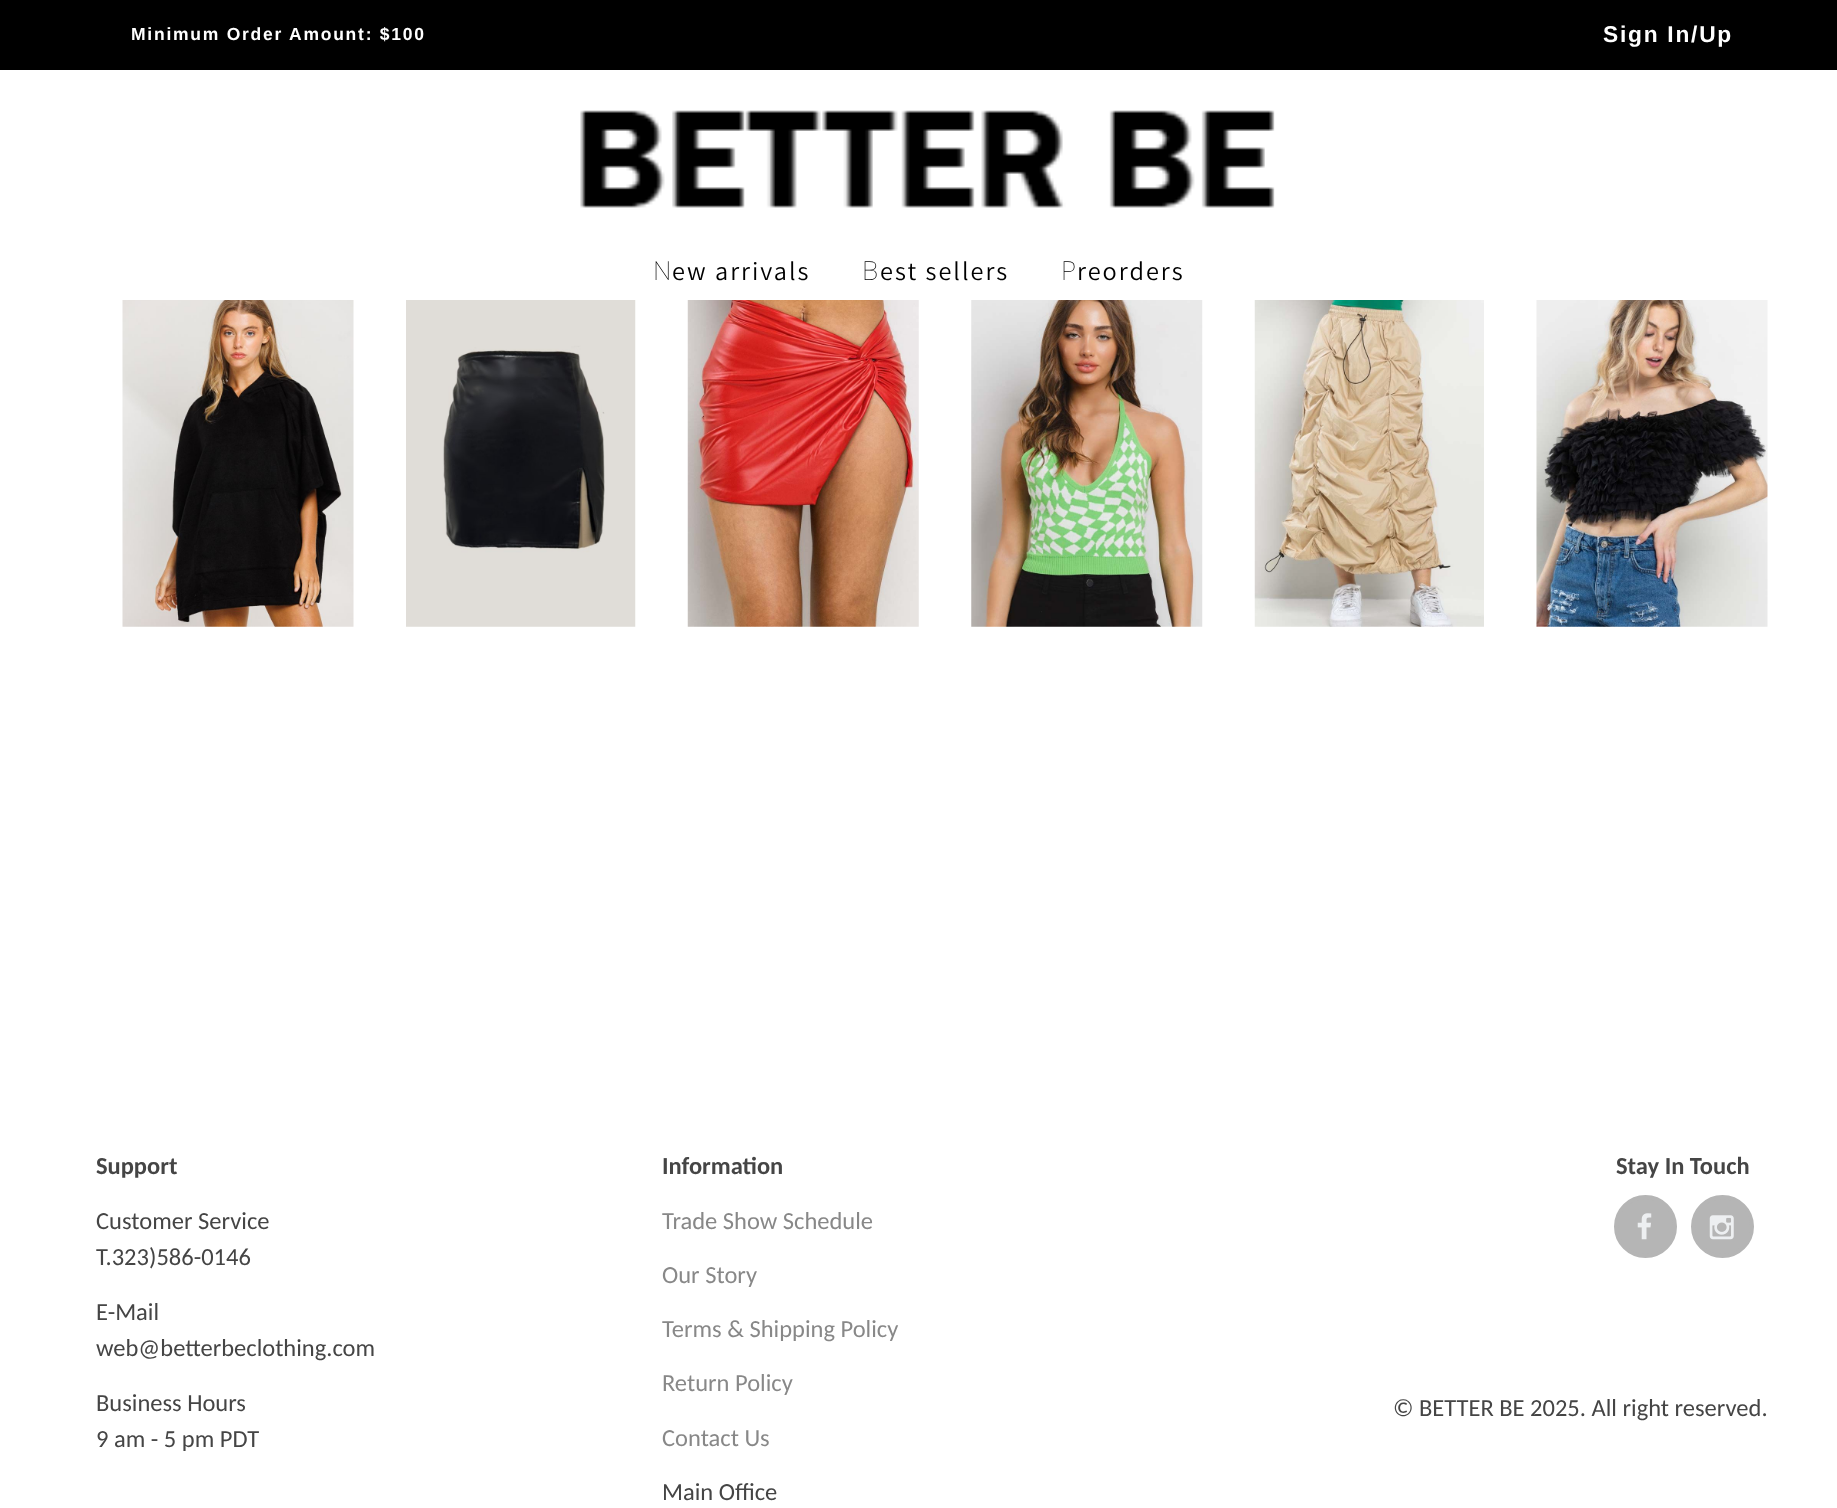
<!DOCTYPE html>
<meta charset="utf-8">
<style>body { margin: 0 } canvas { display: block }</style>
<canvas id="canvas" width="1837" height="1508"></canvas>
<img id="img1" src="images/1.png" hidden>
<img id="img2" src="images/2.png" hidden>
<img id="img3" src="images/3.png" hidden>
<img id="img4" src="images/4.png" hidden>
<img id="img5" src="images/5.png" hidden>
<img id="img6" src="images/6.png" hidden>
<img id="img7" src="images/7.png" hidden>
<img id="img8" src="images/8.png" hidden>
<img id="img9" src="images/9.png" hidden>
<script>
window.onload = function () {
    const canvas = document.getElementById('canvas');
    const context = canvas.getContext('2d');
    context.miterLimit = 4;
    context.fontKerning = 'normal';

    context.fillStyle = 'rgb(255, 255, 255)';
    context.fillRect(0, 0, 1837, 1508);
    context.fillStyle = 'rgb(0, 0, 0)';
    context.fillRect(0, 0, 1837, 70);
    context.drawImage(document.getElementById('img1'), 580, 110, 695, 98);
    context.drawImage(document.getElementById('img2'), 122, 300, 232, 327);
    context.drawImage(document.getElementById('img3'), 406, 300, 230, 327);
    context.drawImage(document.getElementById('img4'), 687, 300, 232, 327);
    context.drawImage(document.getElementById('img5'), 971, 300, 232, 327);
    context.drawImage(document.getElementById('img6'), 1254, 300, 230, 327);
    context.drawImage(document.getElementById('img7'), 1536, 300, 232, 327);
    context.fillStyle = 'rgb(181, 181, 181)';
    context.beginPath();
    context.arc(1645.5, 1226.5, 29.5, 0, 2 * Math.PI);
    context.fill();
    context.strokeStyle = 'rgb(181, 181, 181)';
    context.lineWidth = 4;
    context.stroke();
    context.drawImage(document.getElementById('img8'), 1637, 1213, 15, 27);
    context.beginPath();
    context.arc(1722.5, 1226.5, 29.5, 0, 2 * Math.PI);
    context.fill();
    context.stroke();
    context.drawImage(document.getElementById('img9'), 1709, 1215, 25, 25);
    context.letterSpacing = '1.75px';
    context.font = 'bold 17.5px Liberation Sans';
    context.fillStyle = 'rgb(255, 255, 255)';
    context.fillText('Minimum Order Amount: $100', 131, 40);
    context.font = 'bold 22.75px Liberation Sans';
    context.fillText('Sign In/Up', 1603, 42);
    context.letterSpacing = '2px';
    context.font = '100 26.25px Noto Sans';
    context.fillStyle = 'rgb(0, 0, 0)';
    context.fillText('N', 653, 280);
    context.font = '200 26.25px Assistant';
    context.fillText('ew arrivals', 672, 280);
    context.font = '100 26.25px Noto Sans';
    context.fillText('B', 862, 280);
    context.font = '200 26.25px Assistant';
    context.fillText('est sellers', 880, 280);
    context.font = '100 26.25px Noto Sans';
    context.fillText('P', 1061, 280);
    context.font = '200 26.25px Assistant';
    context.fillText('reorders', 1077, 280);
    context.letterSpacing = '0px';
    context.font = 'bold 24.5px Carlito';
    context.fillStyle = 'rgb(69, 69, 69)';
    context.fillText('Support', 96, 1174);
    context.font = '24.5px Carlito';
    context.fillText('Customer Service', 96, 1229);
    context.fillText('T.323)586-0146', 96, 1265);
    context.fillText('E-Mail', 96, 1320);
    context.fillText('web@betterbeclothing.com', 96, 1356);
    context.fillText('Business Hours', 96, 1411);
    context.fillText('9 am - 5 pm PDT', 96, 1447);
    context.font = 'bold 24.5px Carlito';
    context.fillText('Information', 662, 1174);
    context.font = '24.5px Carlito';
    context.fillStyle = 'rgb(136, 136, 136)';
    context.fillText('Trade Show Schedule', 662, 1229);
    context.fillText('Our Story', 662, 1283);
    context.fillText('Terms & Shipping Policy', 662, 1337);
    context.fillText('Return Policy', 662, 1391);
    context.fillText('Contact Us', 662, 1446);
    context.fillStyle = 'rgb(69, 69, 69)';
    context.fillText('Main Office', 662, 1500);
    context.font = 'bold 24.5px Carlito';
    context.fillText('Stay In Touch', 1616, 1174);
    context.font = '24.5px Carlito';
    context.fillText('© BETTER BE 2025. All right reserved.', 1393, 1416);
};
</script>
